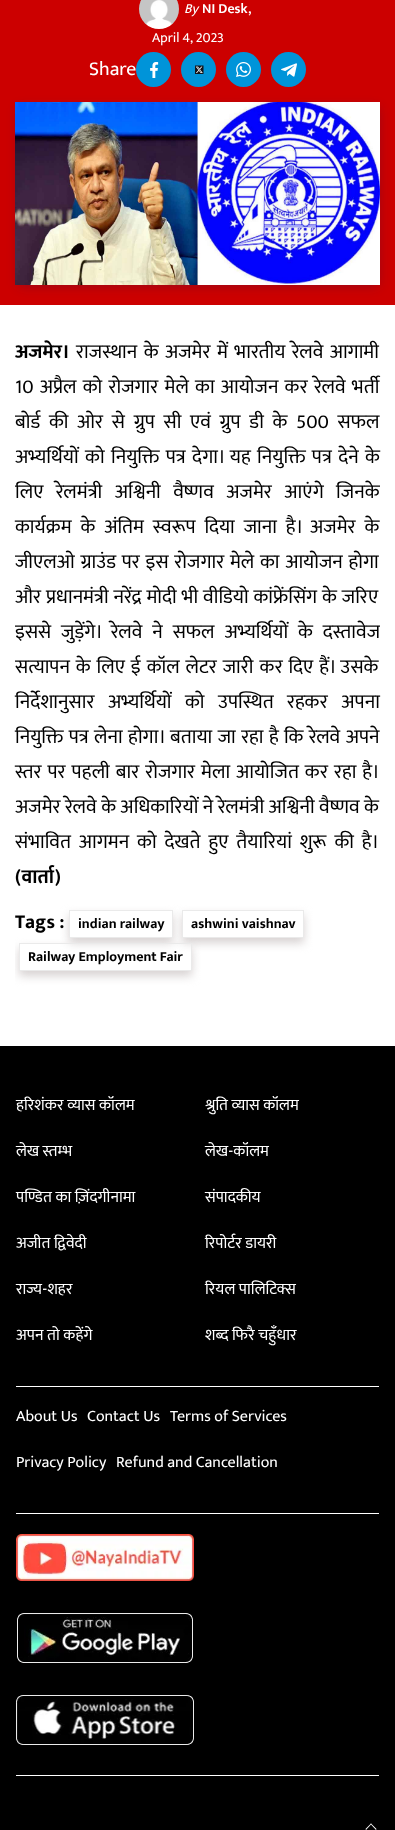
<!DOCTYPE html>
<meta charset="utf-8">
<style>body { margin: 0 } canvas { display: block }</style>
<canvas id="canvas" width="395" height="1830"></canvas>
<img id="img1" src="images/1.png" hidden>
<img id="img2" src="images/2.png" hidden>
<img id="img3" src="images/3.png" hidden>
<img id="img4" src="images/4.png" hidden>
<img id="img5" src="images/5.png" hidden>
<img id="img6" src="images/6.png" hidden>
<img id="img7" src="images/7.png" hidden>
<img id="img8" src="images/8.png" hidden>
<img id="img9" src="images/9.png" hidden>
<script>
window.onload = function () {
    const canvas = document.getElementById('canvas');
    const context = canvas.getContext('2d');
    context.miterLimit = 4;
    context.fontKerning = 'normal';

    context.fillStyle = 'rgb(255, 255, 255)';
    context.fillRect(0, 0, 395, 1830);
    context.fillStyle = 'rgb(204, 0, 0)';
    context.fillRect(0, 0, 395, 305);
    context.drawImage(document.getElementById('img1'), 139, 0, 40, 29);
    context.fillStyle = 'rgb(0, 148, 217)';
    context.beginPath();
    context.arc(153.5, 69.5, 17.5, 0, 2 * Math.PI);
    context.fill();
    context.drawImage(document.getElementById('img2'), 150, 62, 9, 16);
    context.beginPath();
    context.arc(198.5, 69.5, 17.5, 0, 2 * Math.PI);
    context.fill();
    context.drawImage(document.getElementById('img3'), 195, 65, 9, 9);
    context.beginPath();
    context.arc(243.5, 69.5, 17.5, 0, 2 * Math.PI);
    context.fill();
    context.drawImage(document.getElementById('img4'), 236, 62, 15, 15);
    context.beginPath();
    context.arc(288.5, 69.5, 17.5, 0, 2 * Math.PI);
    context.fill();
    context.drawImage(document.getElementById('img5'), 281, 63, 16, 14);
    context.fillStyle = 'rgba(0, 31, 91, 0.3)';
    context.filter = 'blur(6px)';
    context.beginPath();
    context.rect(19, 108, 359, 177);
    context.fill();
    context.filter = 'none';
    context.drawImage(document.getElementById('img6'), 15, 102, 365, 183);
    context.save();
    context.beginPath();
    context.moveTo(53, 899);
    context.lineTo(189, 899);
    context.lineTo(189, 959);
    context.lineTo(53, 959);
    context.closePath();
    context.moveTo(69, 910);
    context.lineTo(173, 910);
    context.lineTo(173, 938);
    context.lineTo(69, 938);
    context.closePath();
    context.clip('evenodd');
    context.fillStyle = 'rgb(215, 210, 210)';
    context.filter = 'blur(5px)';
    context.beginPath();
    context.rect(69, 915, 104, 28);
    context.fill();
    context.filter = 'none';
    context.restore();
    context.strokeStyle = 'rgb(234, 234, 234)';
    context.strokeRect(69.5, 910.5, 103, 27);
    context.save();
    context.beginPath();
    context.moveTo(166, 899);
    context.lineTo(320, 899);
    context.lineTo(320, 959);
    context.lineTo(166, 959);
    context.closePath();
    context.moveTo(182, 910);
    context.lineTo(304, 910);
    context.lineTo(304, 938);
    context.lineTo(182, 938);
    context.closePath();
    context.clip('evenodd');
    context.fillStyle = 'rgb(215, 210, 210)';
    context.filter = 'blur(5px)';
    context.beginPath();
    context.rect(182, 915, 122, 28);
    context.fill();
    context.filter = 'none';
    context.restore();
    context.strokeRect(182.5, 910.5, 121, 27);
    context.save();
    context.beginPath();
    context.rect(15, 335, 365, 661);
    context.clip();
    context.beginPath();
    context.moveTo(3, 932);
    context.lineTo(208, 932);
    context.lineTo(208, 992);
    context.lineTo(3, 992);
    context.closePath();
    context.moveTo(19, 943);
    context.lineTo(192, 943);
    context.lineTo(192, 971);
    context.lineTo(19, 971);
    context.closePath();
    context.clip('evenodd');
    context.fillStyle = 'rgb(215, 210, 210)';
    context.filter = 'blur(5px)';
    context.beginPath();
    context.rect(19, 948, 173, 28);
    context.fill();
    context.filter = 'none';
    context.restore();
    context.strokeRect(19.5, 943.5, 172, 27);
    context.fillStyle = 'rgb(0, 0, 0)';
    context.fillRect(0, 1046, 395, 784);
    context.fillStyle = 'rgb(255, 255, 255)';
    context.fillRect(16, 1386, 363, 1);
    context.fillRect(16, 1513, 363, 1);
    context.fillRect(16, 1775, 363, 1);
    context.drawImage(document.getElementById('img7'), 16, 1534, 178, 47);
    context.drawImage(document.getElementById('img8'), 17, 1613, 176, 50);
    context.drawImage(document.getElementById('img9'), 16, 1695, 178, 50);
    context.beginPath();
    context.moveTo(370.5, 1824);
    context.lineTo(376, 1830);
    context.lineTo(376.5, 1829);
    context.lineTo(371, 1823.5);
    context.closePath();
    context.fill();
    context.beginPath();
    context.moveTo(365.5, 1829);
    context.lineTo(366, 1830);
    context.lineTo(371.5, 1824);
    context.lineTo(371, 1823.5);
    context.closePath();
    context.fill();
    context.font = 'italic 14px Mukta';
    context.fillText('By', 184, 13);
    context.font = '600 14px Mukta';
    context.fillText('NI Desk', 202, 13);
    context.font = '16px Mukta';
    context.fillText(',', 248, 13);
    context.font = '14px Mukta';
    context.fillText('April 4, 2023', 152, 42);
    context.font = '19.75px Mukta';
    context.fillText('Share', 89, 75);
    context.font = 'bold 19.75px Mukta';
    context.fillStyle = 'rgb(0, 0, 0)';
    context.fillText('अजमेर।', 15, 358);
    context.wordSpacing = '2px';
    context.font = '19.75px Mukta';
    context.fillText('राजस्थान के अजमेर में भारतीय रेलवे आगामी', 76, 358);
    context.wordSpacing = '1.75px';
    context.fillText('10 अप्रैल को रोजगार मेले का आयोजन कर रेलवे भर्ती', 15, 393);
    context.save();
    context.beginPath();
    context.rect(15, 335, 365, 661);
    context.clip();
    context.wordSpacing = '4.25px';
    context.fillText('बोर्ड की ओर से ग्रुप सी एवं ग्रुप डी के 500 सफल', 15, 428);
    context.restore();
    context.wordSpacing = '2px';
    context.fillText('अभ्यर्थियों को नियुक्ति पत्र देगा। यह नियुक्ति पत्र देने के', 15, 463);
    context.save();
    context.beginPath();
    context.rect(15, 335, 365, 661);
    context.clip();
    context.wordSpacing = '8px';
    context.fillText('लिए रेलमंत्री अश्विनी वैष्णव अजमेर आएंगे जिनके', 15, 498);
    context.restore();
    context.wordSpacing = '4.5px';
    context.fillText('कार्यक्रम के अंतिम स्वरूप दिया जाना है।', 15, 533);
    context.fillText('अजमेर के', 310, 533);
    context.save();
    context.beginPath();
    context.rect(15, 335, 365, 661);
    context.clip();
    context.wordSpacing = '1.25px';
    context.fillText('जीएलओ ग्राउंड पर इस रोजगार मेले का आयोजन होगा', 15, 568);
    context.restore();
    context.wordSpacing = '0.5px';
    context.fillText('और प्रधानमंत्री नरेंद्र मोदी भी वीडियो कांफ्रेंसिंग के जरिए', 15, 603);
    context.save();
    context.beginPath();
    context.rect(15, 335, 365, 661);
    context.clip();
    context.wordSpacing = '5.5px';
    context.fillText('इससे जुड़ेंगे। रेलवे ने सफल अभ्यर्थियों के दस्तावेज', 15, 638);
    context.wordSpacing = '1.5px';
    context.fillText('सत्यापन के लिए ई कॉल लेटर जारी कर दिए हैं। उसके', 15, 673);
    context.restore();
    context.wordSpacing = '9px';
    context.fillText('निर्देशानुसार अभ्यर्थियों को उपस्थित रहकर अपना', 15, 708);
    context.wordSpacing = '1px';
    context.fillText('नियुक्ति पत्र लेना होगा।', 15, 743);
    context.fillText('बताया जा रहा है कि रेलवे अपने', 170, 743);
    context.wordSpacing = '1.5px';
    context.fillText('स्तर पर पहली बार रोजगार मेला आयोजित कर रहा है।', 15, 778);
    context.wordSpacing = '0px';
    context.fillText('अजमेर रेलवे के अधिकारियों ने रेलमंत्री अश्विनी वैष्णव के', 15, 813);
    context.save();
    context.beginPath();
    context.rect(15, 335, 365, 661);
    context.clip();
    context.wordSpacing = '3.5px';
    context.fillText('संभावित आगमन को देखते हुए तैयारियां शुरू की है।', 15, 848);
    context.restore();
    context.font = 'bold 19.75px Mukta';
    context.fillText('(वार्ता)', 15, 883);
    context.fillText('Tags :', 15, 928);
    context.font = 'bold 14px Mukta';
    context.fillText('indian railway', 78, 928);
    context.fillText('ashwini vaishnav', 191, 928);
    context.fillText('Railway Employment Fair', 28, 961);
    context.font = '16px Mukta';
    context.fillStyle = 'rgb(255, 255, 255)';
    context.fillText('हरिशंकर व्यास कॉलम', 16, 1110);
    context.fillText('श्रुति व्यास कॉलम', 205, 1110);
    context.fillText('लेख स्तम्भ', 16, 1156);
    context.fillText('लेख-कॉलम', 205, 1156);
    context.fillText('पण्डित का ज़िंदगीनामा', 16, 1202);
    context.fillText('संपादकीय', 205, 1202);
    context.fillText('अजीत द्विवेदी', 16, 1248);
    context.fillText('रिपोर्टर डायरी', 205, 1248);
    context.fillText('राज्य-शहर', 16, 1294);
    context.fillText('रियल पालिटिक्स', 205, 1294);
    context.fillText('अपन तो कहेंगे', 16, 1340);
    context.fillText('शब्द फिरै चहुँधार', 205, 1340);
    context.fillText('About Us', 16, 1421);
    context.fillText('Contact Us', 87, 1421);
    context.fillText('Terms of Services', 170, 1421);
    context.fillText('Privacy Policy', 16, 1467);
    context.fillText('Refund and Cancellation', 116, 1467);
};
</script>
